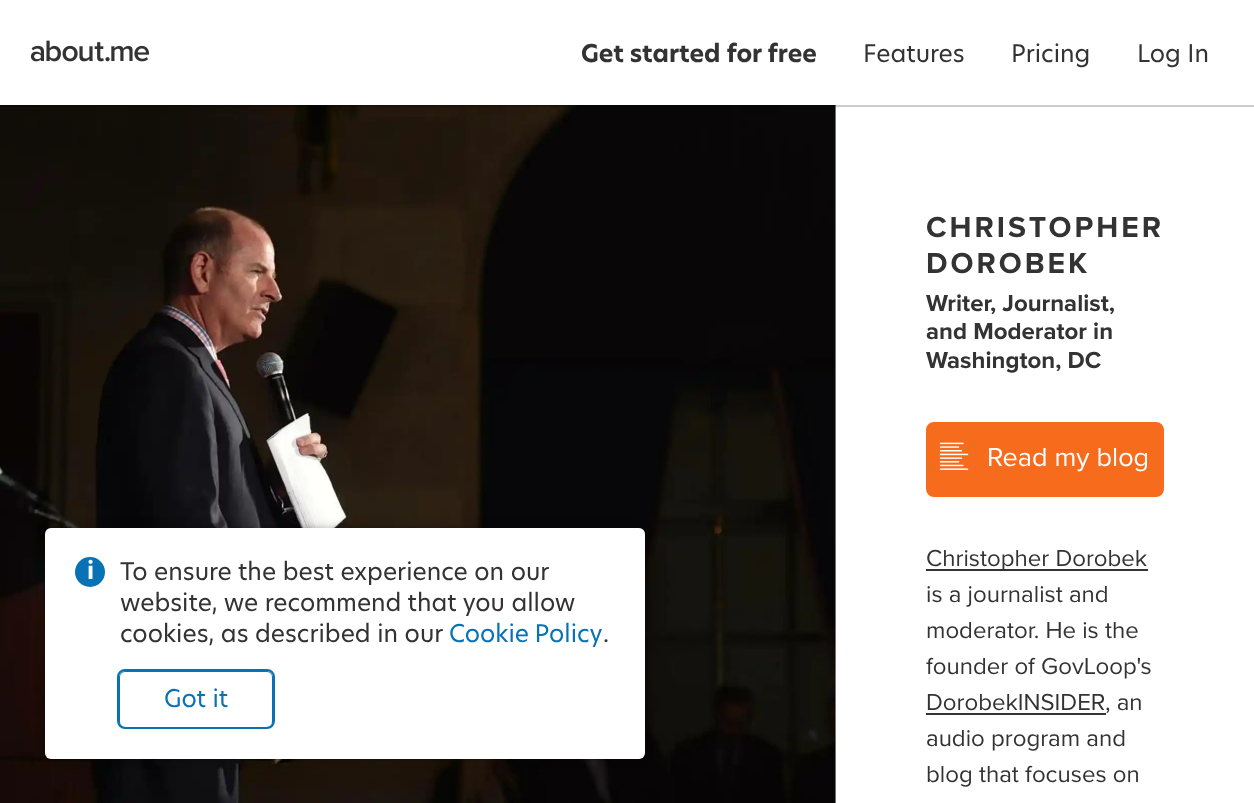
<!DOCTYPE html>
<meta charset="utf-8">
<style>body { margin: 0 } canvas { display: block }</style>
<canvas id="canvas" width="1254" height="803"></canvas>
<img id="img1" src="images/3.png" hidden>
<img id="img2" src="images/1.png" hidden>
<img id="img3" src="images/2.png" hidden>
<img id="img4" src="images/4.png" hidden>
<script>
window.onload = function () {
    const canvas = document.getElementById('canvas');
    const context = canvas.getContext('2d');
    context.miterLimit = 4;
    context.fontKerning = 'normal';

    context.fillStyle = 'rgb(255, 255, 255)';
    context.fillRect(0, 0, 1254, 803);
    context.fillStyle = 'rgb(238, 238, 238)';
    context.fillRect(835, 105, 1, 698);
    context.drawImage(document.getElementById('img1'), 0, 105, 836, 698);
    context.fillStyle = 'rgba(0, 0, 0, 0.3)';
    context.filter = 'blur(4px)';
    context.beginPath();
    context.roundRect(45, 528, 600, 231, 6);
    context.fill();
    context.filter = 'none';
    context.fillStyle = 'rgb(255, 255, 255)';
    context.beginPath();
    context.roundRect(45, 528, 600, 231, 6);
    context.fill();
    context.fillStyle = 'rgb(8, 114, 180)';
    context.beginPath();
    context.arc(90, 572, 15, 0, 2 * Math.PI);
    context.fill();
    context.drawImage(document.getElementById('img2'), 88, 559, 5, 20);
    context.beginPath();
    context.roundRect(119.5, 671.5, 153, 56, 5.5);
    context.strokeStyle = 'rgb(8, 114, 180)';
    context.stroke();
    context.beginPath();
    context.roundRect(118, 670, 156, 58, 7);
    context.lineWidth = 2;
    context.stroke();
    context.fillStyle = 'rgba(0, 0, 0, 0.2)';
    context.fillRect(0, 105, 1254, 2);
    context.drawImage(document.getElementById('img3'), 30, 40, 120, 22);
    context.fillStyle = 'rgb(247, 107, 29)';
    context.beginPath();
    context.roundRect(927, 423, 236, 73, 7);
    context.fill();
    context.strokeStyle = 'rgb(247, 107, 29)';
    context.stroke();
    context.drawImage(document.getElementById('img4'), 939, 442, 30, 28);
    context.fillStyle = 'rgb(51, 51, 51)';
    context.fillRect(926, 569, 222, 2);
    context.fillRect(926, 713, 180, 2);
    context.font = '24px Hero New';
    context.fillText('To ensure the best experience on our', 120, 580);
    context.fillText('website, we recommend that you allow', 120, 611);
    context.fillText('cookies, as described in our', 120, 642);
    context.wordSpacing = '-1px';
    context.fillStyle = 'rgb(8, 114, 180)';
    context.fillText('Cookie Policy', 449, 642);
    context.wordSpacing = '0px';
    context.fillStyle = 'rgb(51, 51, 51)';
    context.fillText('.', 603, 642);
    context.fillStyle = 'rgb(8, 114, 180)';
    context.fillText('Got it', 164, 707);
    context.font = 'bold 24px Hero New';
    context.fillStyle = 'rgb(51, 51, 51)';
    context.fillText('Get started for free', 581, 62);
    context.font = '24px Hero New';
    context.fillText('Features', 863, 62);
    context.fillText('Pricing', 1011, 62);
    context.fillText('Log In', 1137, 62);
    context.letterSpacing = '3px';
    context.font = 'bold 30px Proxima Nova';
    context.fillText('CHRISTOPHER', 926, 237);
    context.fillText('DOROBEK', 926, 273);
    context.letterSpacing = '0px';
    context.font = 'bold 24px Proxima Nova';
    context.fillText('Writer, Journalist,', 926, 311);
    context.fillText('and Moderator in', 926, 339);
    context.fillText('Washington, DC', 926, 368);
    context.font = '27px Proxima Nova';
    context.fillStyle = 'rgb(255, 255, 255)';
    context.fillText('Read my blog', 987, 466);
    context.font = '24px Proxima Nova';
    context.fillStyle = 'rgb(51, 51, 51)';
    context.fillText('Christopher Dorobek', 926, 566);
    context.fillText('is a journalist and', 926, 602);
    context.fillText('moderator. He is the', 926, 638);
    context.fillText('founder of GovLoop\'s', 926, 674);
    context.fillText('DorobekINSIDER', 926, 710);
    context.fillText(', an', 1105, 710);
    context.fillText('audio program and', 926, 746);
    context.fillText('blog that focuses on', 926, 782);
};
</script>
